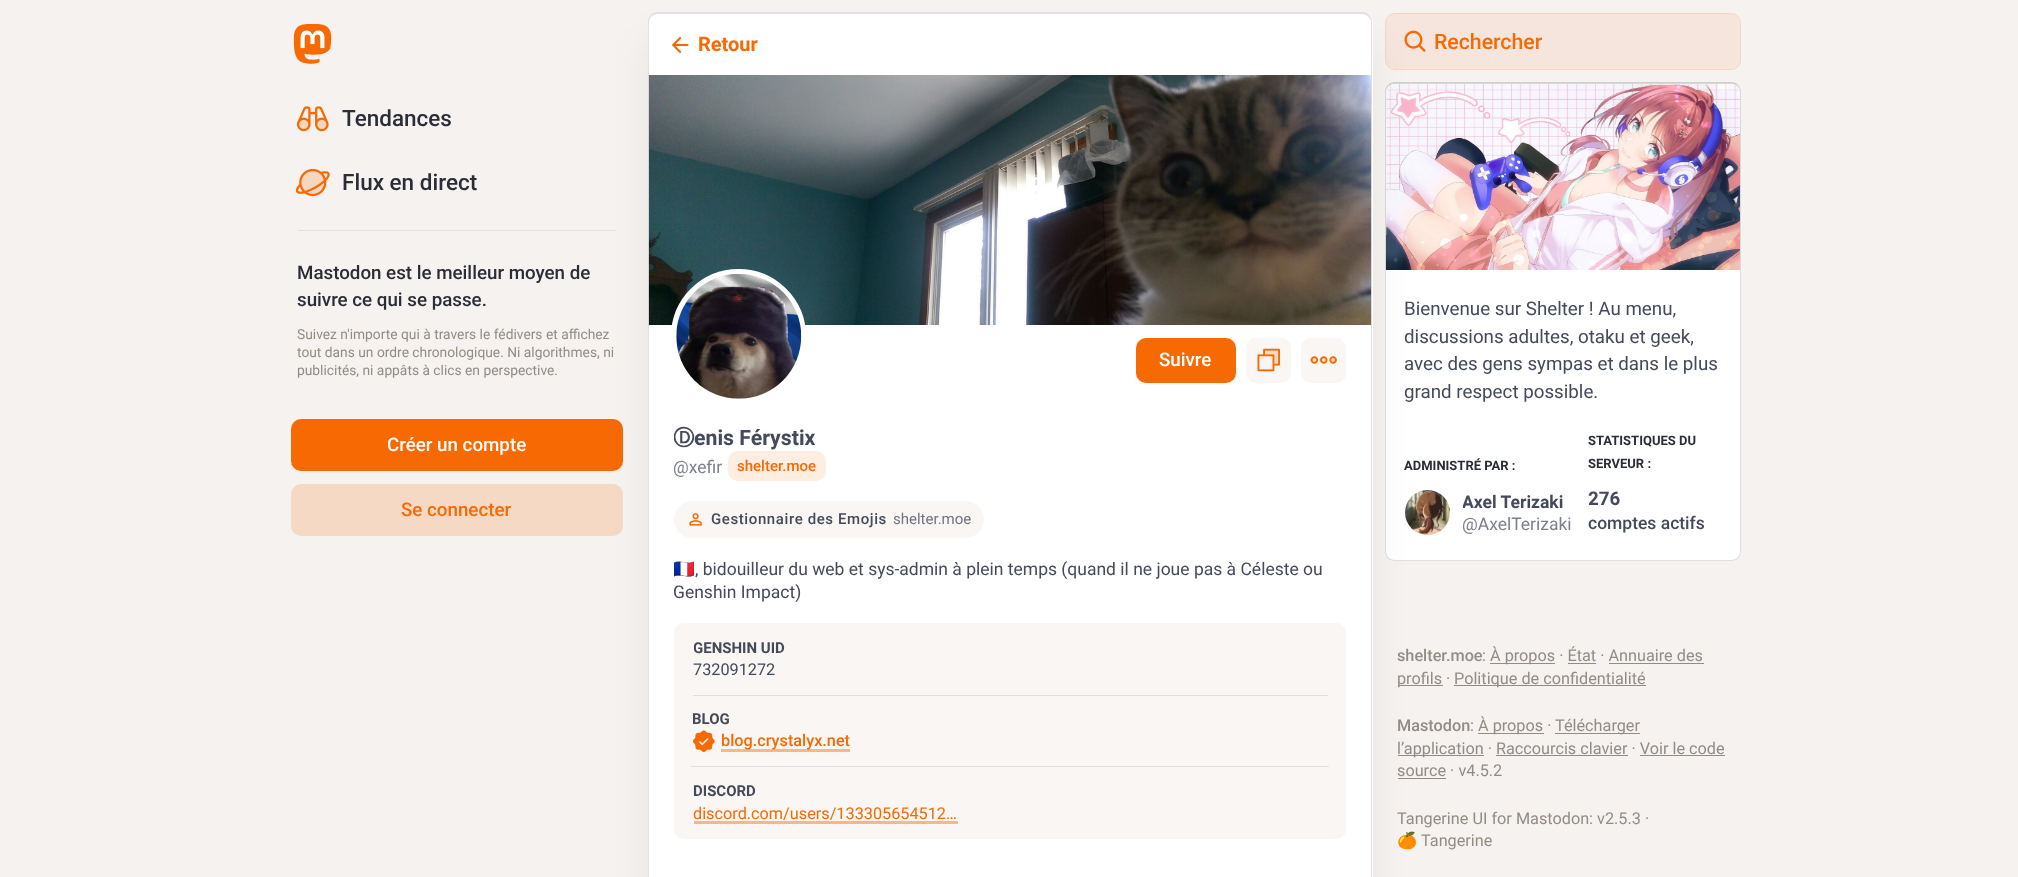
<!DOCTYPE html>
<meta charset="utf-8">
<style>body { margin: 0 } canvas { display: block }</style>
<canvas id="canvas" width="2018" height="877"></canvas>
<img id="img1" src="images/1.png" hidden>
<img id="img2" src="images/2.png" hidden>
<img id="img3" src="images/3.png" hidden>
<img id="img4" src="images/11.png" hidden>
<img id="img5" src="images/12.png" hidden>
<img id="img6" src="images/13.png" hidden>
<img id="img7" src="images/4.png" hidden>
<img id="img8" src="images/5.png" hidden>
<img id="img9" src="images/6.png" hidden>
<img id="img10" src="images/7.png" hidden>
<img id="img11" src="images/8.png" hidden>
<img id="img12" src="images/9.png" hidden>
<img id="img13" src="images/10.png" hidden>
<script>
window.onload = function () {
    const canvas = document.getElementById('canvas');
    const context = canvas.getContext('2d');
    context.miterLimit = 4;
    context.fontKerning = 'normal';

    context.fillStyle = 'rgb(245, 242, 239)';
    context.fillRect(0, 0, 2018, 877);
    context.drawImage(document.getElementById('img1'), 293, 24, 39, 40);
    context.drawImage(document.getElementById('img2'), 296, 106, 33, 26);
    context.drawImage(document.getElementById('img3'), 295, 168, 35, 29);
    context.fillStyle = 'rgb(227, 224, 221)';
    context.fillRect(298, 230, 318, 1);
    context.fillStyle = 'rgb(247, 105, 2)';
    context.beginPath();
    context.roundRect(291, 419, 332, 52, 10);
    context.fill();
    context.fillStyle = 'rgb(245, 217, 196)';
    context.beginPath();
    context.roundRect(291, 484, 332, 52, 10);
    context.fill();
    context.fillStyle = 'rgb(246, 229, 221)';
    context.beginPath();
    context.roundRect(1385, 13, 356, 57, 10);
    context.fill();
    context.beginPath();
    context.roundRect(1385.5, 13.5, 355, 56, 9.5);
    context.strokeStyle = 'rgba(247, 105, 2, 0.12)';
    context.stroke();
    context.drawImage(document.getElementById('img4'), 1404, 30, 22, 22);
    context.fillStyle = 'rgb(255, 255, 255)';
    context.beginPath();
    context.roundRect(1385, 83, 356, 187, [10, 10, 0, 0]);
    context.fill();
    context.fillStyle = 'rgba(0, 0, 0, 0.15)';
    context.beginPath();
    context.moveTo(1395, 82);
    context.lineTo(1731, 82);
    context.bezierCurveTo(1737, 82, 1741, 87, 1741, 92);
    context.lineTo(1741, 270);
    context.lineTo(1385, 270);
    context.lineTo(1385, 92);
    context.bezierCurveTo(1385, 87, 1389, 82, 1395, 82);
    context.closePath();
    context.moveTo(1395, 84);
    context.lineTo(1731, 84);
    context.bezierCurveTo(1736, 84, 1740, 88, 1740, 92);
    context.lineTo(1740, 270);
    context.lineTo(1386, 270);
    context.lineTo(1386, 92);
    context.bezierCurveTo(1386, 88, 1390, 84, 1395, 84);
    context.closePath();
    context.fill('evenodd');
    context.drawImage(document.getElementById('img5'), 1386, 84, 354, 186);
    context.fillStyle = 'rgb(255, 255, 255)';
    context.fillRect(1386, 270, 354, 160);
    context.fillStyle = 'rgb(225, 221, 228)';
    context.fillRect(1385, 270, 1, 160);
    context.fillStyle = 'rgb(255, 255, 255)';
    context.beginPath();
    context.roundRect(1385, 430, 356, 131, [0, 0, 10, 10]);
    context.fill();
    context.fillStyle = 'rgb(225, 221, 228)';
    context.beginPath();
    context.moveTo(1385, 430);
    context.lineTo(1741, 430);
    context.lineTo(1741, 551);
    context.bezierCurveTo(1741, 557, 1737, 561, 1731, 561);
    context.lineTo(1395, 561);
    context.bezierCurveTo(1389, 561, 1385, 557, 1385, 551);
    context.closePath();
    context.moveTo(1386, 430);
    context.lineTo(1740, 430);
    context.lineTo(1740, 551);
    context.bezierCurveTo(1740, 556, 1736, 560, 1731, 560);
    context.lineTo(1395, 560);
    context.bezierCurveTo(1390, 560, 1386, 556, 1386, 551);
    context.closePath();
    context.fill('evenodd');
    context.fillStyle = 'rgb(249, 246, 244)';
    context.beginPath();
    context.arc(1427.5, 512.5, 22.5, 0, 2 * Math.PI);
    context.fill();
    context.drawImage(document.getElementById('img6'), 1405, 490, 45, 45);
    context.fillStyle = 'rgb(148, 140, 132)';
    context.fillRect(1398, 685, 45, 1);
    context.fillRect(1398, 755, 86, 1);
    context.fillRect(1398, 778, 48, 1);
    context.fillStyle = 'rgba(0, 0, 0, 0.06)';
    context.filter = 'blur(19px)';
    context.beginPath();
    context.roundRect(648, 38, 725, 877, 13);
    context.fill();
    context.filter = 'none';
    context.fillStyle = 'rgb(255, 255, 255)';
    context.beginPath();
    context.moveTo(661, 13);
    context.lineTo(1360, 13);
    context.bezierCurveTo(1367, 13, 1373, 19, 1373, 26);
    context.lineTo(1373, 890);
    context.lineTo(648, 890);
    context.lineTo(648, 26);
    context.bezierCurveTo(648, 19, 654, 13, 661, 13);
    context.closePath();
    context.fill();
    context.fillStyle = 'rgb(245, 242, 239)';
    context.beginPath();
    context.moveTo(658, -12);
    context.bezierCurveTo(647, -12, 648, -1, 648, 7);
    context.bezierCurveTo(649, 3, 653, 0, 658, 0);
    context.lineTo(1362, 0);
    context.bezierCurveTo(1368, 0, 1372, 4, 1372, 10);
    context.lineTo(1372, 63);
    context.lineTo(1373, 63);
    context.lineTo(1373, -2);
    context.bezierCurveTo(1373, -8, 1369, -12, 1363, -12);
    context.closePath();
    context.fill();
    context.beginPath();
    context.moveTo(658, 12);
    context.lineTo(1362, 12);
    context.bezierCurveTo(1368, 12, 1372, 17, 1372, 22);
    context.lineTo(1372, 75);
    context.lineTo(1373, 75);
    context.lineTo(1373, 10);
    context.bezierCurveTo(1373, 4, 1369, 0, 1363, 0);
    context.lineTo(658, 0);
    context.bezierCurveTo(652, 0, 648, 4, 648, 10);
    context.lineTo(648, 22);
    context.bezierCurveTo(648, 17, 652, 12, 658, 12);
    context.closePath();
    context.fill();
    context.fillStyle = 'rgba(255, 255, 255, 0.85)';
    context.beginPath();
    context.roundRect(648, 13, 725, 62, [10, 10, 0, 0]);
    context.fill();
    context.fillStyle = 'rgb(225, 221, 228)';
    context.beginPath();
    context.moveTo(658, 12);
    context.lineTo(1362, 12);
    context.bezierCurveTo(1368, 12, 1372, 17, 1372, 22);
    context.lineTo(1372, 75);
    context.lineTo(648, 75);
    context.lineTo(648, 22);
    context.bezierCurveTo(648, 17, 652, 12, 658, 12);
    context.closePath();
    context.moveTo(658, 14);
    context.lineTo(1362, 14);
    context.bezierCurveTo(1367, 14, 1371, 18, 1371, 22);
    context.lineTo(1371, 75);
    context.lineTo(649, 75);
    context.lineTo(649, 22);
    context.bezierCurveTo(649, 18, 653, 14, 658, 14);
    context.closePath();
    context.fill('evenodd');
    context.drawImage(document.getElementById('img7'), 671, 36, 18, 18);
    context.fillRect(1371, 75, 1, 802);
    context.fillRect(648, 75, 1, 802);
    context.drawImage(document.getElementById('img8'), 648, 75, 724, 250);
    context.fillStyle = 'rgb(255, 255, 255)';
    context.beginPath();
    context.arc(738.5, 336.5, 65, 0, 2 * Math.PI);
    context.fill();
    context.strokeStyle = 'rgb(255, 255, 255)';
    context.lineWidth = 5;
    context.stroke();
    context.drawImage(document.getElementById('img9'), 676, 273, 126, 126);
    context.fillStyle = 'rgb(247, 105, 2)';
    context.beginPath();
    context.roundRect(1136, 338, 100, 45, 10);
    context.fill();
    context.fillStyle = 'rgb(249, 246, 244)';
    context.beginPath();
    context.roundRect(1246, 338, 45, 45, 10);
    context.fill();
    context.drawImage(document.getElementById('img10'), 1257, 348, 23, 24);
    context.beginPath();
    context.roundRect(1301, 338, 45, 45, 10);
    context.fill();
    context.drawImage(document.getElementById('img11'), 1310, 356, 27, 8);
    context.fillStyle = 'rgb(254, 237, 225)';
    context.beginPath();
    context.roundRect(728, 451, 98, 30, 10);
    context.fill();
    context.fillStyle = 'rgb(249, 246, 244)';
    context.beginPath();
    context.roundRect(674, 501, 310, 37, 18.5);
    context.fill();
    context.drawImage(document.getElementById('img12'), 689, 513, 13, 13);
    context.beginPath();
    context.roundRect(674, 623, 672, 216, 10);
    context.fill();
    context.fillStyle = 'rgb(225, 221, 228)';
    context.beginPath();
    context.roundRect(693, 695, 635, 1, 0.5);
    context.fill();
    context.drawImage(document.getElementById('img13'), 693, 730, 22, 23);
    context.fillStyle = 'rgb(248, 183, 135)';
    context.fillRect(721, 749, 129, 3);
    context.fillStyle = 'rgb(225, 221, 228)';
    context.beginPath();
    context.roundRect(691, 766, 638, 1, 0.5);
    context.fill();
    context.fillStyle = 'rgb(248, 183, 135)';
    context.fillRect(694, 821, 264, 3);
    context.fillStyle = 'rgb(225, 221, 228)';
    context.fillRect(1740, 270, 1, 160);
    context.fillStyle = 'rgb(148, 140, 132)';
    context.fillRect(1490, 663, 65, 1);
    context.fillRect(1568, 663, 28, 1);
    context.fillRect(1609, 663, 95, 1);
    context.fillRect(1454, 685, 192, 1);
    context.fillRect(1478, 733, 66, 1);
    context.fillRect(1555, 733, 85, 1);
    context.fillRect(1496, 755, 132, 1);
    context.fillRect(1640, 755, 85, 1);
    context.font = '500 22.5px Roboto';
    context.fillStyle = 'rgb(42, 45, 55)';
    context.fillText('Tendances', 342, 126);
    context.fillText('Flux en direct', 342, 190);
    context.font = '500 18.75px Roboto';
    context.fillText('Mastodon est le meilleur moyen de', 297, 279);
    context.fillText('suivre ce qui se passe.', 297, 306);
    context.font = '13.8px Roboto';
    context.fillStyle = 'rgb(148, 140, 132)';
    context.fillText('Suivez n\'importe qui à travers le fédivers et affichez', 297, 339);
    context.fillText('tout dans un ordre chronologique. Ni algorithmes, ni', 297, 357);
    context.fillText('publicités, ni appâts à clics en perspective.', 297, 375);
    context.font = '500 18.75px Roboto';
    context.fillStyle = 'rgb(255, 255, 255)';
    context.fillText('Créer un compte', 387, 451);
    context.fillStyle = 'rgb(247, 105, 2)';
    context.fillText('Se connecter', 401, 516);
    context.font = 'bold 20px Roboto';
    context.fillText('Retour', 698, 51);
    context.font = '500 18.75px Roboto';
    context.fillStyle = 'rgb(255, 255, 255)';
    context.fillText('Suivre', 1159, 366);
    context.save();
    context.beginPath();
    context.rect(674, 424, 672, 57);
    context.clip();
    context.font = 'bold 21.25px WenQuanYi Zen Hei';
    context.fillStyle = 'rgb(68, 74, 90)';
    context.fillText('Ⓓ', 673, 445);
    context.restore();
    context.font = 'bold 21.25px Roboto';
    context.fillStyle = 'rgb(68, 74, 90)';
    context.fillText('enis Férystix', 694, 445);
    context.font = '17.5px Roboto';
    context.fillStyle = 'rgb(124, 128, 140)';
    context.fillText('@xefir', 673, 473);
    context.font = '500 15px Roboto';
    context.fillStyle = 'rgb(247, 105, 2)';
    context.fillText('shelter.moe', 737, 471);
    context.letterSpacing = '0.6px';
    context.fillStyle = 'rgb(68, 74, 90)';
    context.fillText('Gestionnaire des Emojis', 711, 524);
    context.letterSpacing = '0px';
    context.font = '15px Roboto';
    context.fillStyle = 'rgb(113, 117, 129)';
    context.fillText('shelter.moe', 893, 524);
    context.save();
    context.beginPath();
    context.rect(674, 558, 672, 45);
    context.clip();
    context.font = '17.5px Noto Color Emoji';
    context.fillStyle = 'rgb(68, 74, 90)';
    context.fillText('🇫🇷', 673, 575);
    context.restore();
    context.font = '17.5px Roboto';
    context.fillStyle = 'rgb(68, 74, 90)';
    context.fillText('️, bidouilleur du web et sys-admin à plein temps (quand il ne joue pas à Céleste ou', 695, 575);
    context.fillText('Genshin Impact)', 673, 598);
    context.save();
    context.beginPath();
    context.rect(694, 636, 632, 23);
    context.clip();
    context.font = 'bold 15px Roboto';
    context.fillText('GENSHIN UID', 693, 653);
    context.restore();
    context.font = '16.25px Roboto';
    context.fillText('732091272', 693, 675);
    context.save();
    context.beginPath();
    context.rect(693, 708, 635, 22);
    context.clip();
    context.font = 'bold 15px Roboto';
    context.fillText('BLOG', 692, 724);
    context.restore();
    context.font = '500 16.25px Roboto';
    context.fillStyle = 'rgb(247, 105, 2)';
    context.fillText('blog.crystalyx.net', 721, 746);
    context.font = 'bold 15px Roboto';
    context.fillStyle = 'rgb(68, 74, 90)';
    context.fillText('DISCORD', 693, 796);
    context.font = '16.25px Roboto';
    context.fillStyle = 'rgb(247, 105, 2)';
    context.fillText('discord.com/users/133305654512…', 693, 819);
    context.font = '500 21.25px Roboto';
    context.fillText('Rechercher', 1434, 49);
    context.font = '18.75px Roboto';
    context.fillStyle = 'rgb(68, 74, 90)';
    context.fillText('Bienvenue sur Shelter ! Au menu,', 1404, 315);
    context.fillText('discussions adultes, otaku et geek,', 1404, 343);
    context.fillText('avec des gens sympas et dans le plus', 1404, 370);
    context.fillText('grand respect possible.', 1404, 398);
    context.font = 'bold 13px Roboto';
    context.fillStyle = 'rgb(42, 45, 55)';
    context.fillText('ADMINISTRÉ PAR :', 1404, 470);
    context.save();
    context.beginPath();
    context.rect(1463, 490, 108, 23);
    context.clip();
    context.font = 'bold 17.5px Roboto';
    context.fillStyle = 'rgb(68, 74, 90)';
    context.fillText('Axel Terizaki', 1462, 508);
    context.restore();
    context.save();
    context.beginPath();
    context.rect(1463, 490, 108, 45);
    context.clip();
    context.font = '17.5px Roboto';
    context.fillStyle = 'rgb(124, 128, 140)';
    context.fillText('@AxelTerizaki', 1462, 530);
    context.restore();
    context.fillText('STATISTIQUES DU', 1588, 445);
    context.fillText('SERVEUR :', 1588, 468);
    context.font = 'bold 18.75px Roboto';
    context.fillStyle = 'rgb(68, 74, 90)';
    context.fillText('276', 1588, 505);
    context.font = '500 17.5px Roboto';
    context.fillText('comptes actifs', 1588, 529);
    context.font = '500 16.25px Roboto';
    context.fillStyle = 'rgb(148, 140, 132)';
    context.fillText('shelter.moe', 1397, 661);
    context.font = '16.25px Roboto';
    context.fillText(':', 1482, 661);
    context.fillText('À propos · État · Annuaire des', 1490, 661);
    context.fillText('profils ·', 1397, 684);
    context.fillText('Politique de confidentialité', 1454, 684);
    context.font = '500 16.25px Roboto';
    context.fillText('Mastodon', 1397, 731);
    context.font = '16.25px Roboto';
    context.fillText(':', 1470, 731);
    context.fillText('À propos ·', 1478, 731);
    context.fillText('Télécharger', 1555, 731);
    context.fillText('l’application · Raccourcis clavier · Voir le code', 1397, 754);
    context.fillText('source · v4.5.2', 1397, 776);
    context.fillText('Tangerine UI for Mastodon: v2.5.3 ·', 1397, 824);
    context.font = '16.25px Noto Color Emoji';
    context.fillText('🍊', 1397, 846);
    context.font = '16.25px Roboto';
    context.fillText('Tangerine', 1421, 846);
};
</script>
